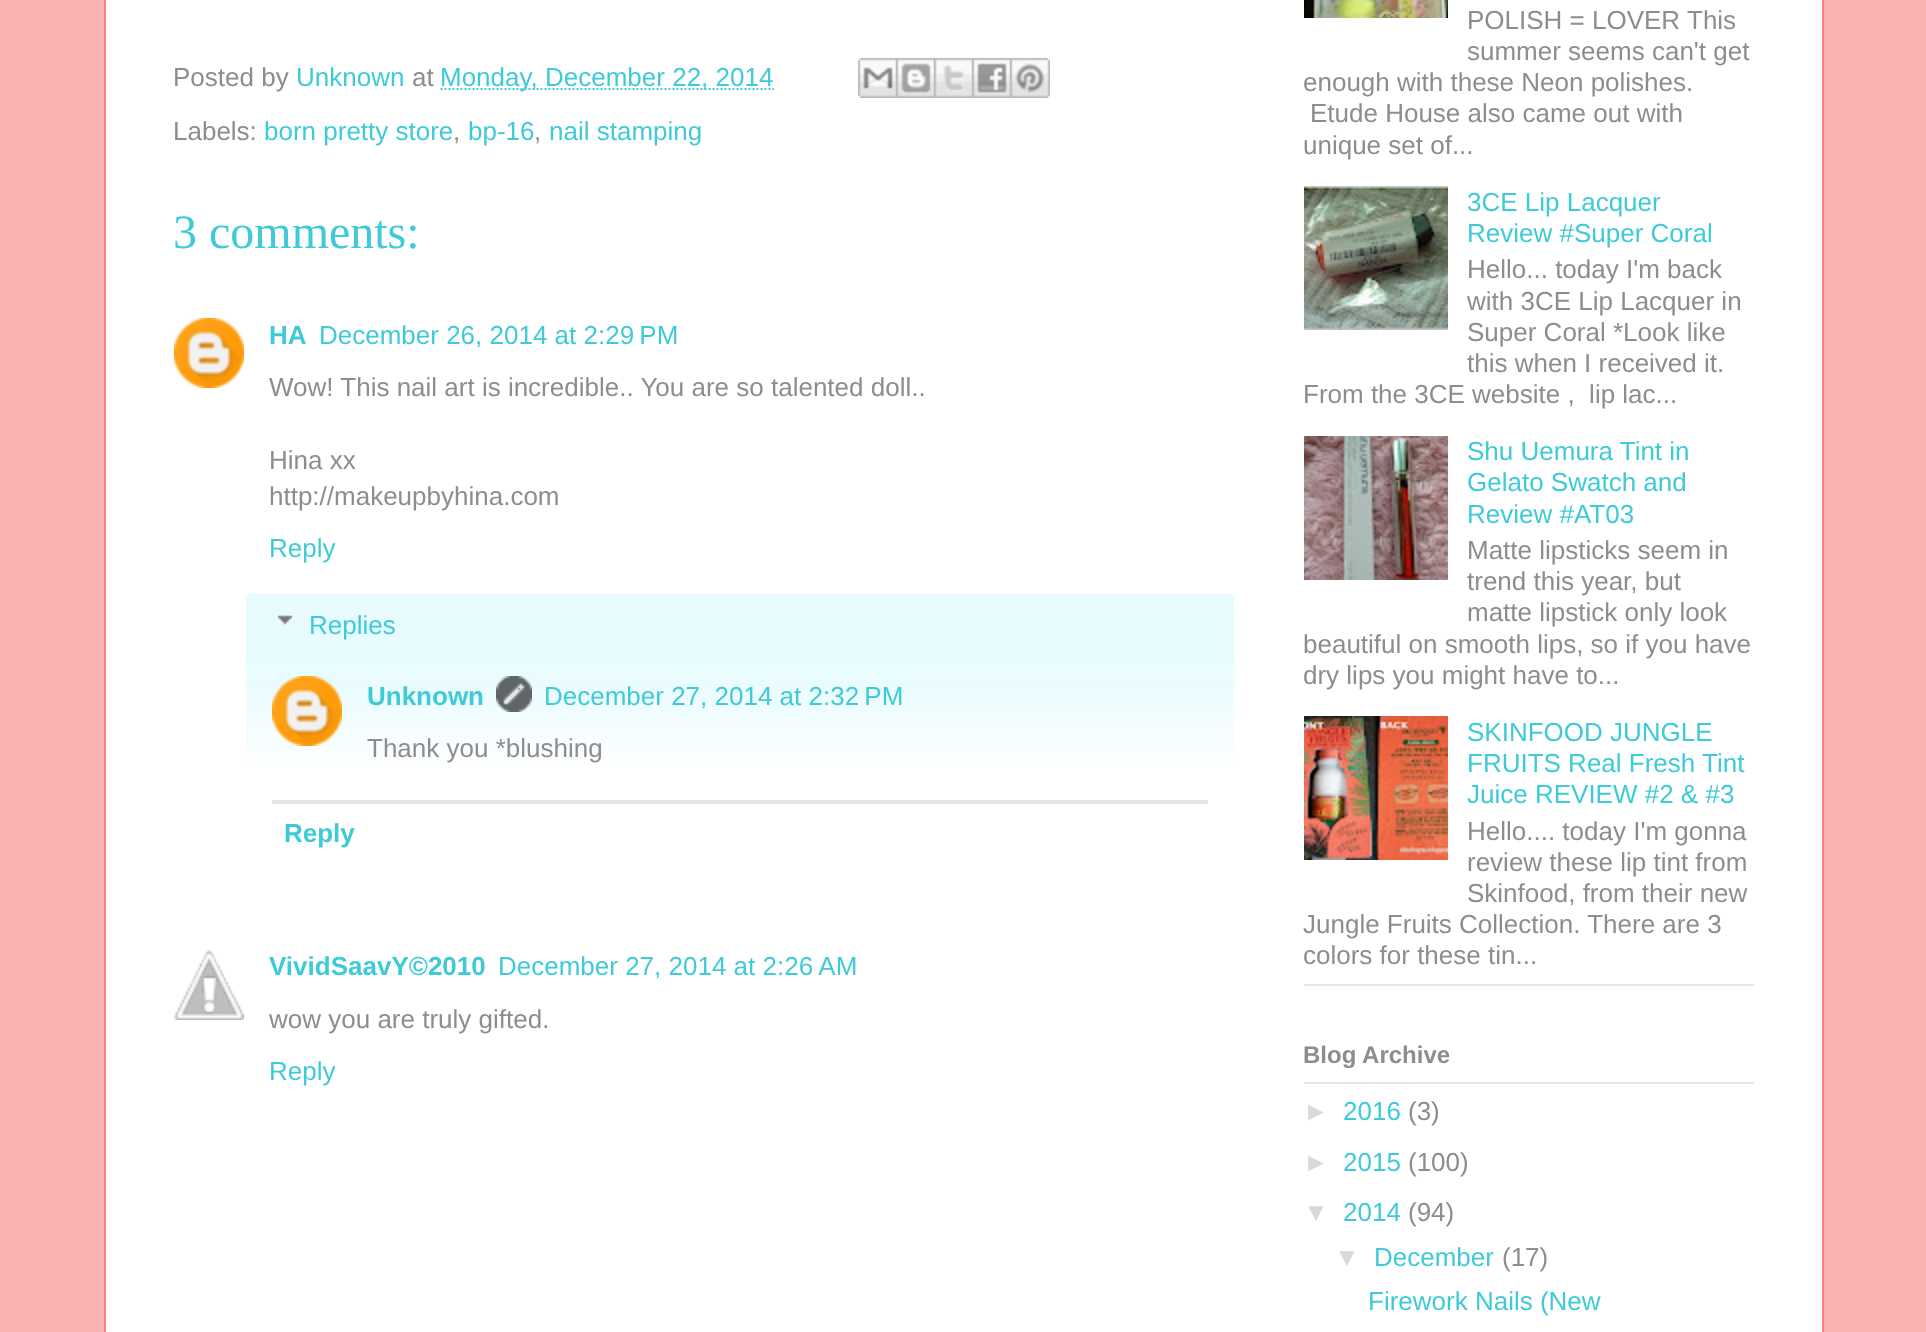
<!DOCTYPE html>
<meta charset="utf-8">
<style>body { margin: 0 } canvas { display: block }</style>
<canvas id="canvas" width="1926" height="1332"></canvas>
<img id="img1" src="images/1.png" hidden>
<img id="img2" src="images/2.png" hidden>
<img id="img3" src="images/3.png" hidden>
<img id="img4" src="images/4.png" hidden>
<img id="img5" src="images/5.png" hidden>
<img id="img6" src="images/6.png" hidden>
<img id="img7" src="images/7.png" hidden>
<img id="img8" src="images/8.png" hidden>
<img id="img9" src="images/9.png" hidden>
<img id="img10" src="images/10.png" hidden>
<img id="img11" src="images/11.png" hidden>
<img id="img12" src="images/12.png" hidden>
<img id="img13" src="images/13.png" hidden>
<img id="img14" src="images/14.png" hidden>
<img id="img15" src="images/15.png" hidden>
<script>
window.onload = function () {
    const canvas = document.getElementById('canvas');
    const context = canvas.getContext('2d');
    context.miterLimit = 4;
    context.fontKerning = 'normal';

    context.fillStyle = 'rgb(251, 177, 178)';
    context.fillRect(0, 0, 1926, 1332);
    context.fillStyle = 'rgb(255, 255, 255)';
    context.fillRect(106, 0, 1716, 1332);
    context.fillStyle = 'rgb(251, 126, 119)';
    context.fillRect(1822, 0, 2, 1332);
    context.fillRect(104, 0, 2, 1332);
    context.beginPath();
    context.moveTo(440.5, 89);
    context.lineTo(774, 89);
    context.strokeStyle = 'rgb(63, 202, 216)';
    context.lineWidth = 2;
    context.setLineDash([2, 2]);
    context.stroke();
    context.drawImage(document.getElementById('img1'), 858, 58, 38, 40);
    context.drawImage(document.getElementById('img2'), 896, 58, 38, 40);
    context.drawImage(document.getElementById('img3'), 934, 58, 38, 40);
    context.drawImage(document.getElementById('img4'), 972, 58, 38, 40);
    context.drawImage(document.getElementById('img5'), 1010, 58, 40, 40);
    context.drawImage(document.getElementById('img6'), 174, 318, 70, 70);
    context.drawImage(document.getElementById('img7'), 246, 594, 988, 168);
    context.drawImage(document.getElementById('img8'), 278, 615, 14, 10);
    context.drawImage(document.getElementById('img9'), 272, 676, 70, 70);
    context.drawImage(document.getElementById('img10'), 496, 676, 36, 36);
    context.fillStyle = 'rgb(230, 230, 230)';
    context.fillRect(272, 800, 936, 4);
    context.drawImage(document.getElementById('img11'), 174, 950, 70, 70);
    context.fillRect(1304, 984, 450, 2);
    context.drawImage(document.getElementById('img12'), 1304, 0, 144, 18);
    context.drawImage(document.getElementById('img13'), 1304, 186, 144, 144);
    context.drawImage(document.getElementById('img14'), 1304, 436, 144, 144);
    context.drawImage(document.getElementById('img15'), 1304, 716, 144, 144);
    context.fillRect(1304, 1082, 450, 2);
    context.font = '26px Liberation Sans';
    context.fillStyle = 'rgb(141, 141, 141)';
    context.fillText('Posted by', 173, 86);
    context.fillStyle = 'rgb(63, 202, 216)';
    context.fillText('Unknown', 296, 86);
    context.fillStyle = 'rgb(141, 141, 141)';
    context.fillText('at', 412, 86);
    context.fillStyle = 'rgb(63, 202, 216)';
    context.fillText('Monday, December 22, 2014', 440, 86);
    context.fillStyle = 'rgb(141, 141, 141)';
    context.fillText('Labels:', 173, 140);
    context.fillStyle = 'rgb(63, 202, 216)';
    context.fillText('born pretty store', 264, 140);
    context.fillStyle = 'rgb(141, 141, 141)';
    context.fillText(',', 453, 140);
    context.fillStyle = 'rgb(63, 202, 216)';
    context.fillText('bp-16', 468, 140);
    context.fillStyle = 'rgb(141, 141, 141)';
    context.fillText(',', 534, 140);
    context.fillStyle = 'rgb(63, 202, 216)';
    context.fillText('nail stamping', 549, 140);
    context.font = '48px Liberation Serif';
    context.fillText('3 comments:', 173, 248);
    context.font = 'bold 26px Liberation Sans';
    context.fillText('HA', 269, 344);
    context.font = '26px Liberation Sans';
    context.fillText('December 26, 2014 at 2:29 PM', 319, 344);
    context.fillStyle = 'rgb(141, 141, 141)';
    context.fillText('Wow! This nail art is incredible.. You are so talented doll..', 269, 396);
    context.fillText('Hina xx', 269, 469);
    context.fillText('http://makeupbyhina.com', 269, 505);
    context.fillStyle = 'rgb(63, 202, 216)';
    context.fillText('Reply', 269, 557);
    context.fillText('Replies', 309, 634);
    context.font = 'bold 26px Liberation Sans';
    context.fillText('Unknown', 367, 705);
    context.font = '26px Liberation Sans';
    context.fillText('December 27, 2014 at 2:32 PM', 544, 705);
    context.fillStyle = 'rgb(141, 141, 141)';
    context.fillText('Thank you *blushing', 367, 757);
    context.font = 'bold 26px Liberation Sans';
    context.fillStyle = 'rgb(63, 202, 216)';
    context.fillText('Reply', 284, 842);
    context.fillText('VividSaavY©2010', 269, 975);
    context.font = '26px Liberation Sans';
    context.fillText('December 27, 2014 at 2:26 AM', 498, 975);
    context.fillStyle = 'rgb(141, 141, 141)';
    context.fillText('wow you are truly gifted.', 269, 1028);
    context.fillStyle = 'rgb(63, 202, 216)';
    context.fillText('Reply', 269, 1080);
    context.fillStyle = 'rgb(141, 141, 141)';
    context.fillText('POLISH = LOVER', 1467, 29);
    context.fillText('This', 1687, 29);
    context.fillText('summer seems can\'t get', 1467, 60);
    context.fillText('enough with these Neon polishes.', 1303, 91);
    context.fillText('Etude House also came out with', 1310, 122);
    context.fillText('unique set of...', 1303, 154);
    context.fillStyle = 'rgb(63, 202, 216)';
    context.fillText('3CE Lip Lacquer', 1467, 211);
    context.fillText('Review #Super Coral', 1467, 242);
    context.fillStyle = 'rgb(141, 141, 141)';
    context.fillText('Hello... today I\'m back', 1467, 278);
    context.fillText('with 3CE Lip Lacquer in', 1467, 310);
    context.fillText('Super Coral *Look like', 1467, 341);
    context.fillText('this when I received it.', 1467, 372);
    context.fillText('From the 3CE website ,  lip lac...', 1303, 403);
    context.fillStyle = 'rgb(63, 202, 216)';
    context.fillText('Shu Uemura Tint in', 1467, 460);
    context.fillText('Gelato Swatch and', 1467, 491);
    context.fillText('Review #AT03', 1467, 523);
    context.fillStyle = 'rgb(141, 141, 141)';
    context.fillText('Matte lipsticks seem in', 1467, 559);
    context.fillText('trend this year, but', 1467, 590);
    context.fillText('matte lipstick only look', 1467, 621);
    context.fillText('beautiful on smooth lips, so if you have', 1303, 653);
    context.fillText('dry lips you might have to...', 1303, 684);
    context.fillStyle = 'rgb(63, 202, 216)';
    context.fillText('SKINFOOD JUNGLE', 1467, 741);
    context.fillText('FRUITS Real Fresh Tint', 1467, 772);
    context.fillText('Juice REVIEW #2 & #3', 1467, 803);
    context.fillStyle = 'rgb(141, 141, 141)';
    context.fillText('Hello.... today I\'m gonna', 1467, 840);
    context.fillText('review these lip tint from', 1467, 871);
    context.fillText('Skinfood, from their new', 1467, 902);
    context.fillText('Jungle Fruits Collection. There are 3', 1303, 933);
    context.fillText('colors for these tin...', 1303, 964);
    context.font = 'bold 24px Liberation Sans';
    context.fillText('Blog Archive', 1303, 1063);
    context.font = '26px Liberation Sans';
    context.fillStyle = 'rgb(217, 217, 217)';
    context.fillText('►', 1303, 1120);
    context.fillStyle = 'rgb(63, 202, 216)';
    context.fillText('2016', 1343, 1120);
    context.fillStyle = 'rgb(141, 141, 141)';
    context.fillText('(3)', 1408, 1120);
    context.fillStyle = 'rgb(217, 217, 217)';
    context.fillText('►', 1303, 1171);
    context.fillStyle = 'rgb(63, 202, 216)';
    context.fillText('2015', 1343, 1171);
    context.fillStyle = 'rgb(141, 141, 141)';
    context.fillText('(100)', 1408, 1171);
    context.fillStyle = 'rgb(217, 217, 217)';
    context.fillText('▼', 1303, 1221);
    context.fillStyle = 'rgb(63, 202, 216)';
    context.fillText('2014', 1343, 1221);
    context.fillStyle = 'rgb(141, 141, 141)';
    context.fillText('(94)', 1408, 1221);
    context.fillStyle = 'rgb(217, 217, 217)';
    context.fillText('▼', 1334, 1266);
    context.fillStyle = 'rgb(63, 202, 216)';
    context.fillText('December', 1374, 1266);
    context.fillStyle = 'rgb(141, 141, 141)';
    context.fillText('(17)', 1502, 1266);
    context.fillStyle = 'rgb(63, 202, 216)';
    context.fillText('Firework Nails (New', 1368, 1310);
};
</script>
